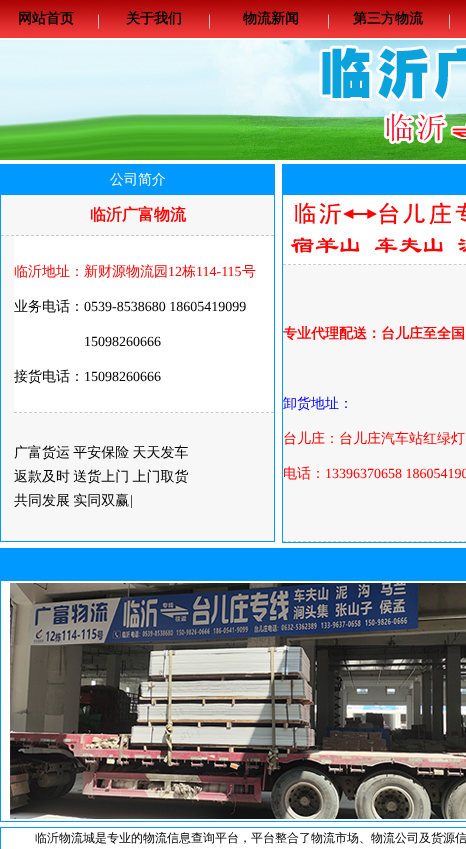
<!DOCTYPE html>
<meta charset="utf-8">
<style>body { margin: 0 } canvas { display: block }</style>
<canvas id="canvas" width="466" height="849"></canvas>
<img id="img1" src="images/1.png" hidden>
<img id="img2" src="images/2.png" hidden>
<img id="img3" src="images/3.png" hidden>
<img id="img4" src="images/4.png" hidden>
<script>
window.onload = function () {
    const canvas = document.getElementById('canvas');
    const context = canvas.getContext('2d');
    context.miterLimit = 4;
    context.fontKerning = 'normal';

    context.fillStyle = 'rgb(255, 255, 255)';
    context.fillRect(0, 0, 466, 849);
    context.drawImage(document.getElementById('img1'), 0, 0, 466, 38);
    context.drawImage(document.getElementById('img2'), 0, 40, 466, 120);
    context.fillStyle = 'rgb(247, 247, 247)';
    context.fillRect(1, 195, 273, 346);
    context.strokeStyle = 'rgb(0, 153, 255)';
    context.strokeRect(0.5, 164.5, 274, 377);
    context.fillStyle = 'rgb(0, 153, 255)';
    context.fillRect(1, 165, 273, 30);
    context.beginPath();
    context.moveTo(1, 235.5);
    context.lineTo(274, 235.5);
    context.strokeStyle = 'rgb(204, 204, 204)';
    context.setLineDash([3, 2]);
    context.stroke();
    context.fillStyle = 'rgb(255, 255, 255)';
    context.fillRect(14, 236, 260, 177);
    context.beginPath();
    context.moveTo(14, 412.5);
    context.lineTo(274, 412.5);
    context.setLineDash([3, 2.04]);
    context.stroke();
    context.strokeStyle = 'rgb(0, 153, 255)';
    context.setLineDash([]);
    context.strokeRect(282.5, 164.5, 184, 378);
    context.fillStyle = 'rgb(0, 153, 255)';
    context.fillRect(283, 165, 183, 30);
    context.beginPath();
    context.moveTo(283, 264.5);
    context.lineTo(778, 264.5);
    context.strokeStyle = 'rgb(204, 204, 204)';
    context.setLineDash([3, 2.02]);
    context.stroke();
    context.drawImage(document.getElementById('img3'), 291, 199, 175, 60);
    context.fillStyle = 'rgb(247, 247, 247)';
    context.fillRect(283, 265, 183, 277);
    context.beginPath();
    context.moveTo(283, 541.5);
    context.lineTo(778, 541.5);
    context.stroke();
    context.strokeStyle = 'rgb(0, 153, 255)';
    context.setLineDash([]);
    context.strokeRect(0.5, 548.5, 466, 273);
    context.fillStyle = 'rgb(0, 153, 255)';
    context.fillRect(1, 549, 465, 32);
    context.drawImage(document.getElementById('img4'), 10, 583, 456, 236);
    context.strokeRect(0.5, 827.5, 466, 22);
    context.font = 'bold 14px WenQuanYi Zen Hei';
    context.fillStyle = 'rgb(0, 0, 0)';
    context.fillText('网站首页', 18, 23);
    context.fillText('关于我们', 126, 23);
    context.fillText('物流新闻', 243, 23);
    context.fillText('第三方物流', 353, 23);
    context.font = '500 14px WenQuanYi Zen Hei';
    context.fillStyle = 'rgb(255, 255, 255)';
    context.fillText('公司简介', 110, 184);
    context.font = 'bold 16px WenQuanYi Zen Hei';
    context.fillStyle = 'rgb(255, 0, 0)';
    context.fillText('临沂广富物流', 90, 220);
    context.font = '500 14px WenQuanYi Zen Hei';
    context.fillText('临沂地址：新财源物流园', 14, 276);
    context.font = '14px Liberation Serif';
    context.fillText('12', 168, 276);
    context.font = '500 14px WenQuanYi Zen Hei';
    context.fillText('栋', 182, 276);
    context.font = '14px Liberation Serif';
    context.fillText('114-115', 196, 276);
    context.font = '500 14px WenQuanYi Zen Hei';
    context.fillText('号', 242, 276);
    context.fillStyle = 'rgb(0, 0, 0)';
    context.fillText('业务电话：', 14, 311);
    context.font = '14px Liberation Serif';
    context.fillText('0539-8538680 18605419099', 84, 311);
    context.fillText('15098260666', 84, 346);
    context.font = '500 14px WenQuanYi Zen Hei';
    context.fillText('接货电话：', 14, 381);
    context.font = '14px Liberation Serif';
    context.fillText('15098260666', 84, 381);
    context.wordSpacing = '-1px';
    context.font = '500 14px WenQuanYi Zen Hei';
    context.fillText('广富货运 平安保险 天天发车', 14, 457);
    context.fillText('返款及时 送货上门 上门取货', 14, 481);
    context.fillText('共同发展 实同双赢', 14, 505);
    context.wordSpacing = '0px';
    context.font = '14px Liberation Serif';
    context.fillText('|', 130, 505);
    context.font = 'bold 14px WenQuanYi Zen Hei';
    context.fillStyle = 'rgb(255, 0, 0)';
    context.fillText('专业代理配送：台儿庄至全国', 283, 338);
    context.font = '500 14px WenQuanYi Zen Hei';
    context.fillStyle = 'rgb(0, 0, 255)';
    context.fillText('卸货地址：', 283, 408);
    context.fillStyle = 'rgb(255, 0, 0)';
    context.fillText('台儿庄：台儿庄汽车站红绿灯', 283, 443);
    context.fillText('电话：', 283, 478);
    context.font = '14px Liberation Serif';
    context.fillText('13396370658 186054190', 325, 478);
    context.wordSpacing = '-1px';
    context.font = '500 12px WenQuanYi Zen Hei';
    context.fillStyle = 'rgb(0, 0, 0)';
    context.fillText('临沂物流城是专业的物流信息查询平台，平台整合了物流市场、物流公司及货源信', 35, 842);
};
</script>
